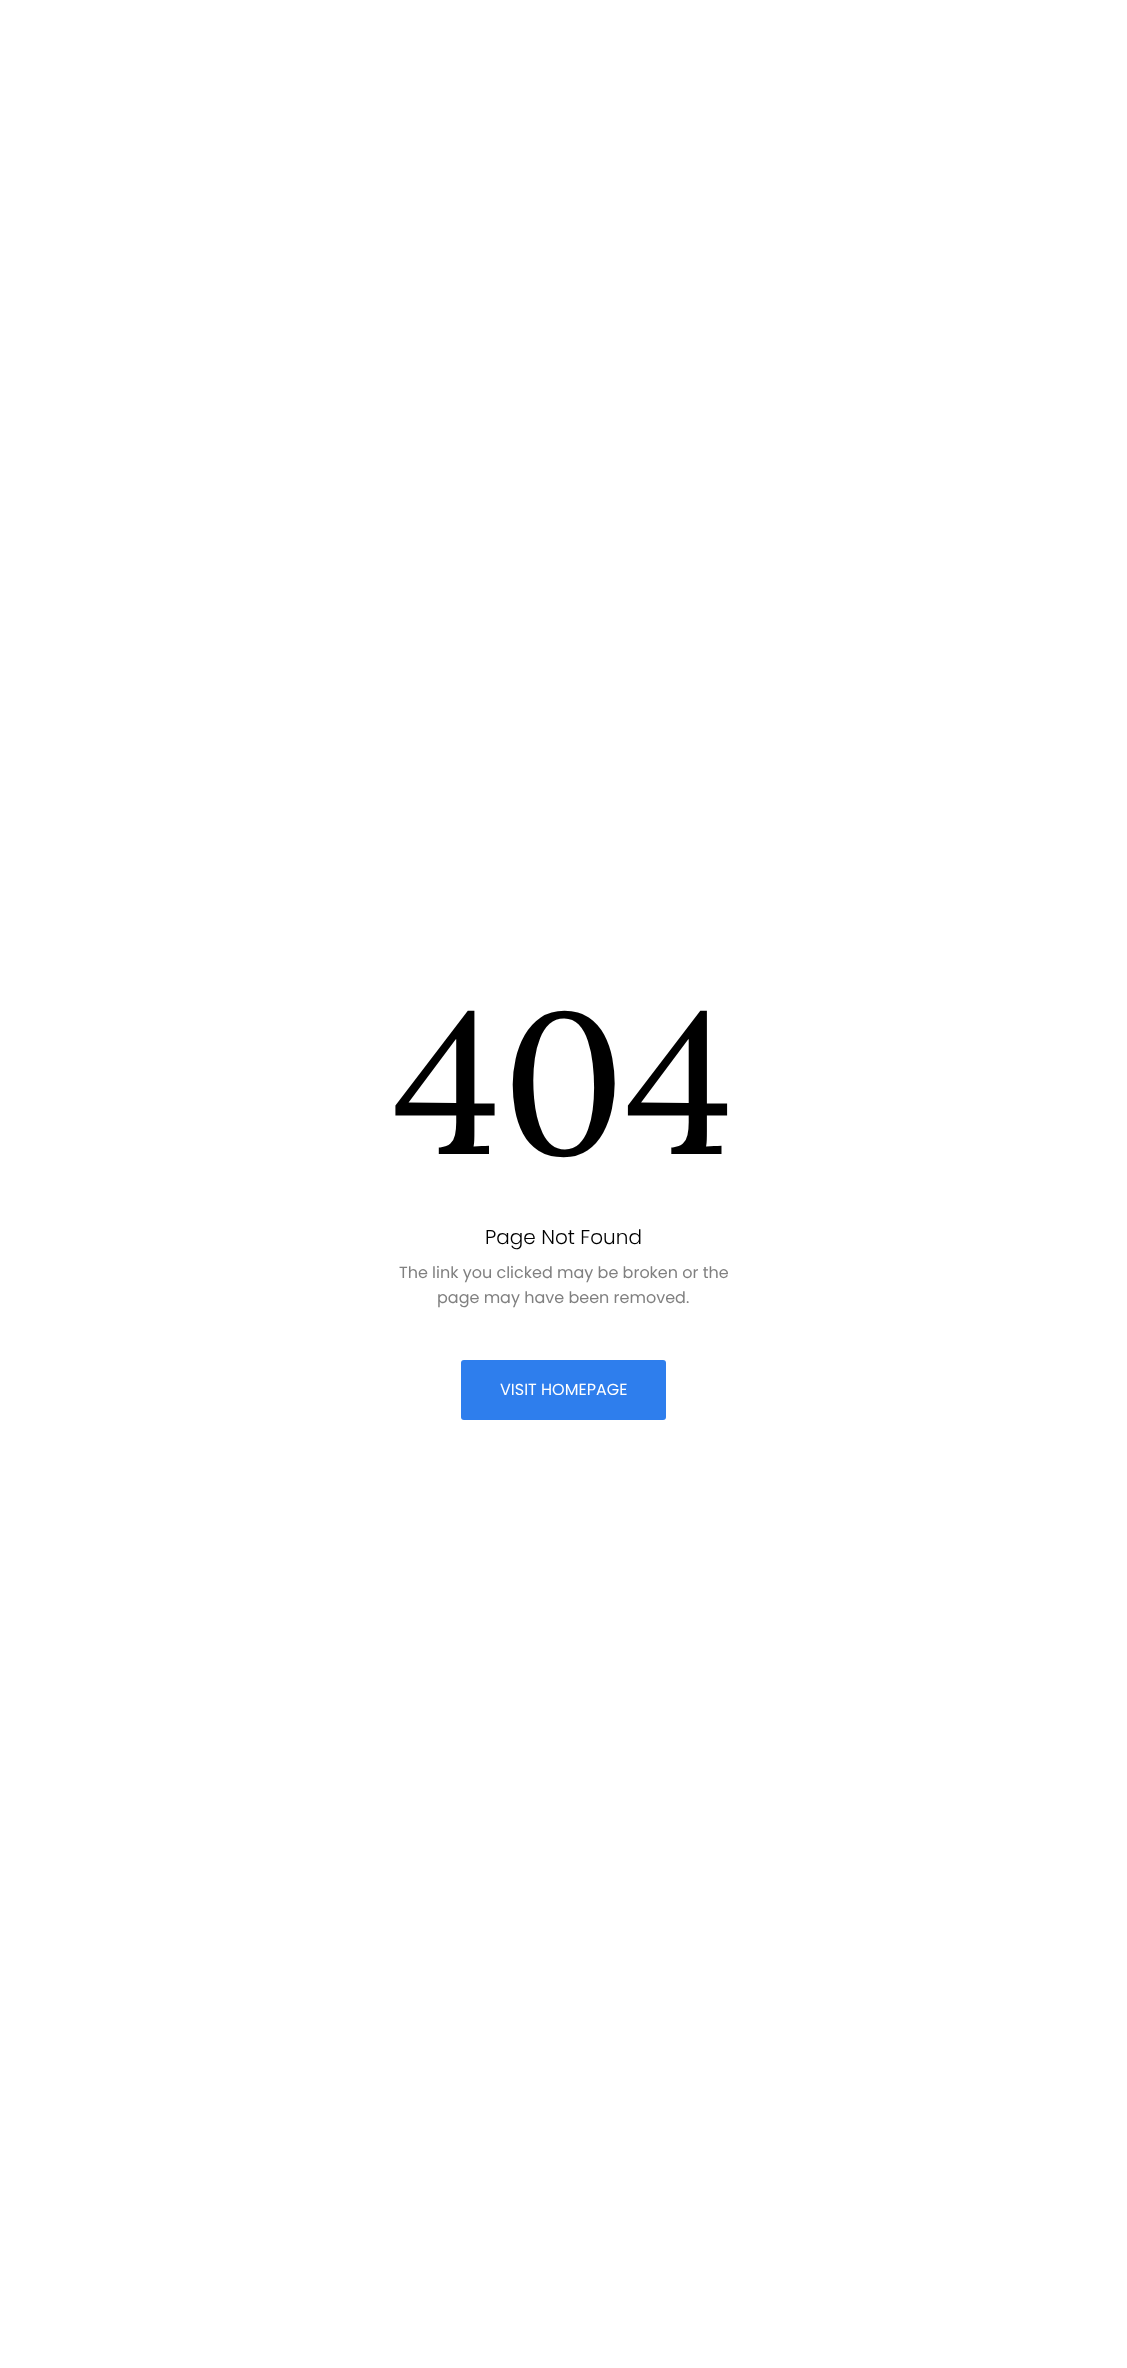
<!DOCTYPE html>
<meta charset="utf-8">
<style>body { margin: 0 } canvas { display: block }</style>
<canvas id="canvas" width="1127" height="2368"></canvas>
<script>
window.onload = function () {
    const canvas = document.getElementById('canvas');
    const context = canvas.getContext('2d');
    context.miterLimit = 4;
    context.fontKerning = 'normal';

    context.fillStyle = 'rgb(255, 255, 255)';
    context.fillRect(0, 0, 1127, 2368);
    context.fillStyle = 'rgb(46, 126, 237)';
    context.beginPath();
    context.roundRect(461, 1360, 205, 60, 3);
    context.fill();
    context.font = '200px Lora';
    context.fillStyle = 'rgb(0, 0, 0)';
    context.fillText('404', 393, 1154);
    context.font = '300 20px Poppins';
    context.fillText('Page Not Found', 485, 1244);
    context.font = '16px Poppins';
    context.fillStyle = 'rgb(128, 128, 128)';
    context.fillText('The link you clicked may be broken or the', 399, 1278);
    context.fillText('page may have been removed.', 437, 1303);
    context.fillStyle = 'rgb(255, 255, 255)';
    context.fillText('VISIT HOMEPAGE', 500, 1395);
};
</script>
